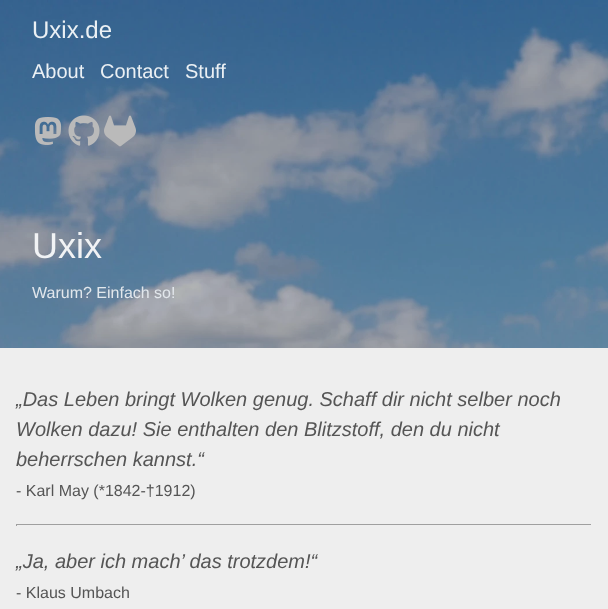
<!DOCTYPE html>
<meta charset="utf-8">
<style>body { margin: 0 } canvas { display: block }</style>
<canvas id="canvas" width="608" height="609"></canvas>
<img id="img1" src="images/1.png" hidden>
<img id="img2" src="images/2.png" hidden>
<img id="img3" src="images/3.png" hidden>
<img id="img4" src="images/4.png" hidden>
<script>
window.onload = function () {
    const canvas = document.getElementById('canvas');
    const context = canvas.getContext('2d');
    context.miterLimit = 4;
    context.fontKerning = 'normal';

    context.fillStyle = 'rgb(238, 238, 238)';
    context.fillRect(0, 0, 608, 609);
    context.drawImage(document.getElementById('img1'), 0, 0, 608, 348);
    context.drawImage(document.getElementById('img2'), 34, 117, 28, 28);
    context.drawImage(document.getElementById('img3'), 68, 115, 32, 31);
    context.drawImage(document.getElementById('img4'), 104, 115, 32, 32);
    context.fillStyle = 'rgb(159, 159, 159)';
    context.fillRect(16, 524, 576, 1);
    context.fillStyle = 'rgb(238, 238, 238)';
    context.fillRect(591, 524, 1, 2);
    context.fillStyle = 'rgb(159, 159, 159)';
    context.fillRect(16, 524, 1, 2);
    context.font = '24px Liberation Sans';
    context.fillStyle = 'rgb(235, 240, 244)';
    context.fillText('Uxix.de', 32, 38);
    context.font = '20px Liberation Sans';
    context.fillText('About', 32, 78);
    context.fillText('Contact', 100, 78);
    context.fillText('Stuff', 185, 78);
    context.font = '36px Liberation Sans';
    context.fillStyle = 'rgb(241, 243, 245)';
    context.fillText('Uxix', 32, 258);
    context.font = '16px Liberation Sans';
    context.fillStyle = 'rgb(226, 231, 236)';
    context.fillText('Warum? Einfach so!', 32, 298);
    context.font = 'italic 20px Liberation Sans';
    context.fillStyle = 'rgb(85, 85, 85)';
    context.fillText('„Das Leben bringt Wolken genug. Schaff dir nicht selber noch', 16, 406);
    context.fillText('Wolken dazu! Sie enthalten den Blitzstoff, den du nicht', 16, 436);
    context.fillText('beherrschen kannst.“', 16, 466);
    context.font = '16px Liberation Sans';
    context.fillText('- Karl May (*1842-†1912)', 16, 496);
    context.font = 'italic 20px Liberation Sans';
    context.fillText('„Ja, aber ich mach’ das trotzdem!“', 16, 568);
    context.font = '16px Liberation Sans';
    context.fillText('- Klaus Umbach', 16, 598);
};
</script>
